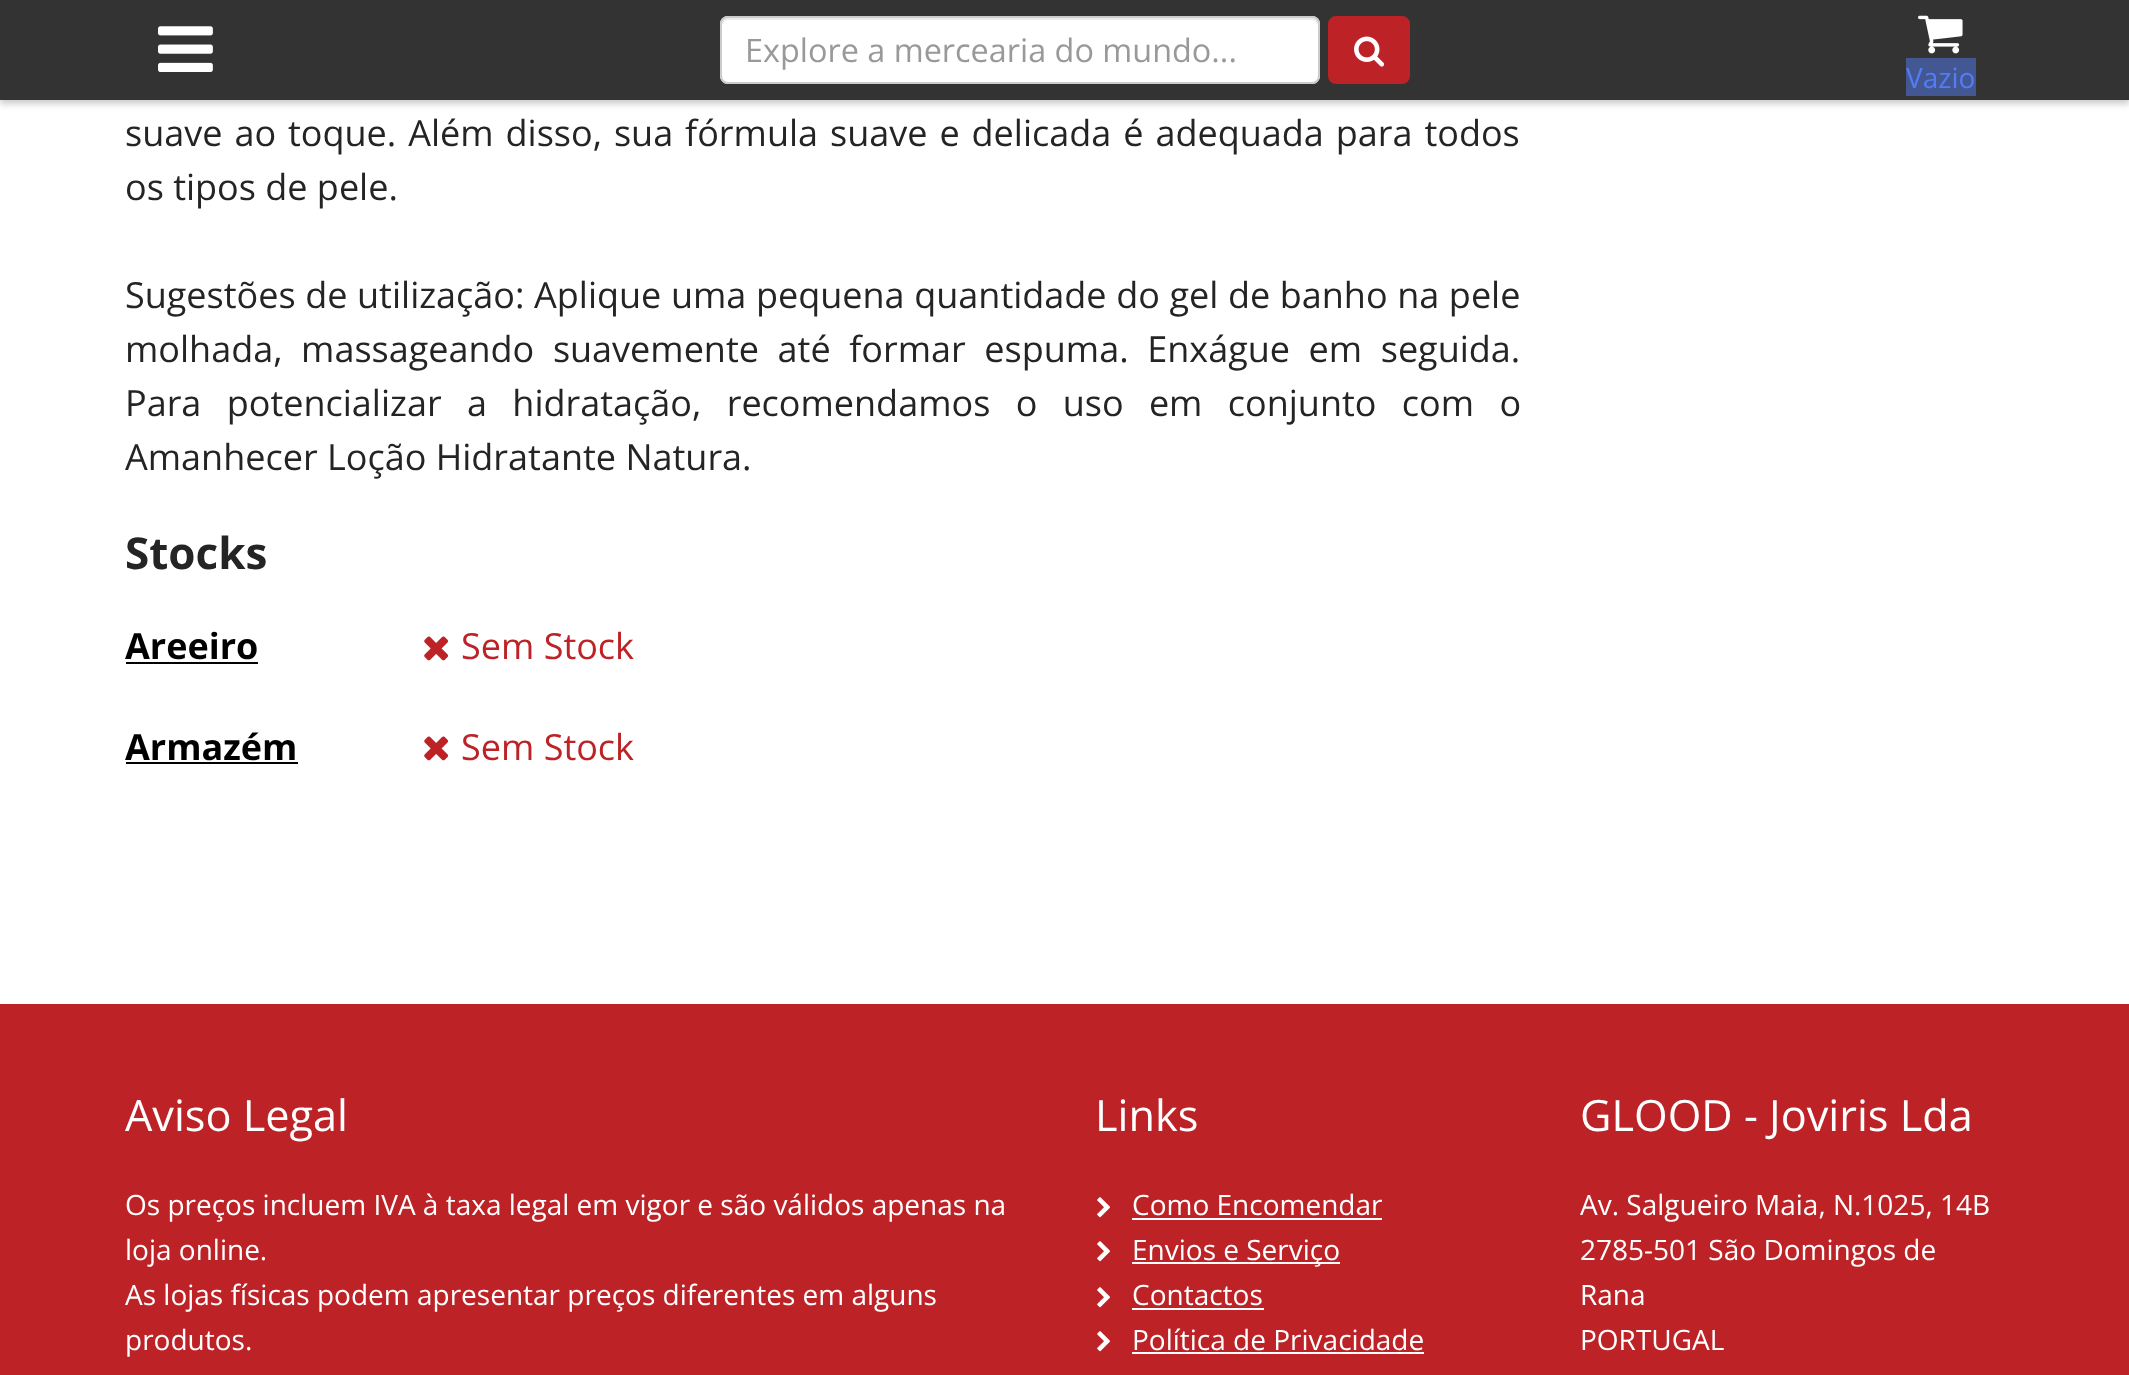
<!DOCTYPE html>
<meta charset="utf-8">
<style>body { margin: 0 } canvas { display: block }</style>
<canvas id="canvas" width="2129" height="1375"></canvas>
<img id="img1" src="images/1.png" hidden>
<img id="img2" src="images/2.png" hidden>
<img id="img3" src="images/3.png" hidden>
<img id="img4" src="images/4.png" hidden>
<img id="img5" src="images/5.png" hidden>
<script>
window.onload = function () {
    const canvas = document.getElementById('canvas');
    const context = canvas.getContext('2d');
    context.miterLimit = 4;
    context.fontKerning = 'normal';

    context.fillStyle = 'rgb(255, 255, 255)';
    context.fillRect(0, 0, 2129, 1375);
    context.fillStyle = 'rgba(0, 0, 0, 0.2)';
    context.filter = 'blur(3px)';
    context.beginPath();
    context.rect(0, 4, 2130, 100);
    context.fill();
    context.filter = 'none';
    context.fillStyle = 'rgb(51, 51, 51)';
    context.fillRect(0, 0, 2129, 100);
    context.drawImage(document.getElementById('img1'), 158, 26, 55, 46);
    context.fillStyle = 'rgb(255, 255, 255)';
    context.beginPath();
    context.roundRect(720, 16, 600, 68, 8);
    context.fill();
    context.fillStyle = 'rgb(236, 236, 236)';
    context.beginPath();
    context.moveTo(728, 20);
    context.lineTo(1312, 20);
    context.bezierCurveTo(1315, 20, 1318, 23, 1318, 26);
    context.lineTo(1318, 24);
    context.bezierCurveTo(1318, 21, 1315, 18, 1312, 18);
    context.lineTo(728, 18);
    context.bezierCurveTo(725, 18, 722, 21, 722, 24);
    context.lineTo(722, 26);
    context.bezierCurveTo(722, 23, 725, 20, 728, 20);
    context.closePath();
    context.fill();
    context.beginPath();
    context.roundRect(721, 17, 598, 66, 7);
    context.strokeStyle = 'rgb(204, 204, 204)';
    context.lineWidth = 2;
    context.stroke();
    context.fillStyle = 'rgb(188, 34, 38)';
    context.beginPath();
    context.roundRect(1329, 17, 80, 66, 7);
    context.fill();
    context.strokeStyle = 'rgb(188, 34, 38)';
    context.stroke();
    context.drawImage(document.getElementById('img2'), 1354, 36, 31, 31);
    context.drawImage(document.getElementById('img3'), 1918, 15, 45, 39);
    context.fillStyle = 'rgb(67, 88, 147)';
    context.fillRect(1906, 58, 70, 38);
    context.fillStyle = 'rgb(0, 0, 0)';
    context.fillRect(126, 662, 132, 2);
    context.drawImage(document.getElementById('img4'), 424, 636, 25, 25);
    context.fillRect(126, 762, 172, 2);
    context.drawImage(document.getElementById('img4'), 424, 736, 25, 25);
    context.fillStyle = 'rgb(188, 34, 38)';
    context.fillRect(0, 1004, 2129, 371);
    context.drawImage(document.getElementById('img5'), 1097, 1197, 13, 21);
    context.fillStyle = 'rgb(255, 255, 255)';
    context.fillRect(1132, 1218, 250, 2);
    context.drawImage(document.getElementById('img5'), 1097, 1241, 13, 21);
    context.fillRect(1132, 1262, 208, 2);
    context.drawImage(document.getElementById('img5'), 1097, 1287, 13, 21);
    context.fillRect(1132, 1308, 132, 2);
    context.drawImage(document.getElementById('img5'), 1097, 1331, 13, 21);
    context.fillRect(1132, 1352, 292, 2);
    context.font = '32.4px Open Sans';
    context.fillStyle = 'rgb(153, 153, 153)';
    context.fillText('Explore a mercearia do mundo...', 745, 62);
    context.font = '28px Open Sans';
    context.fillStyle = 'rgb(82, 125, 243)';
    context.fillText('Vazio', 1906, 88);
    context.wordSpacing = '2.6px';
    context.font = '36px Open Sans';
    context.fillStyle = 'rgb(36, 36, 36)';
    context.fillText('suave ao toque. Além disso, sua fórmula suave e delicada é adequada para todos', 125, 146);
    context.wordSpacing = '0px';
    context.fillText('os tipos de pele.', 125, 200);
    context.wordSpacing = '0.25px';
    context.fillText('Sugestões de utilização: Aplique uma pequena quantidade do gel de banho na pele', 125, 308);
    context.wordSpacing = '9.25px';
    context.fillText('molhada, massageando suavemente até formar espuma. Enxágue em seguida.', 125, 362);
    context.wordSpacing = '16px';
    context.fillText('Para potencializar a hidratação, recomendamos o uso em conjunto com o', 125, 416);
    context.wordSpacing = '0px';
    context.fillText('Amanhecer Loção Hidratante Natura.', 125, 470);
    context.font = 'bold 44px Open Sans';
    context.fillText('Stocks', 125, 569);
    context.font = 'bold 36px Open Sans';
    context.fillStyle = 'rgb(0, 0, 0)';
    context.fillText('Areeiro', 125, 659);
    context.font = '36px Open Sans';
    context.fillStyle = 'rgb(188, 34, 38)';
    context.fillText('Sem Stock', 461, 659);
    context.font = 'bold 36px Open Sans';
    context.fillStyle = 'rgb(0, 0, 0)';
    context.fillText('Armazém', 125, 760);
    context.font = '36px Open Sans';
    context.fillStyle = 'rgb(188, 34, 38)';
    context.fillText('Sem Stock', 461, 760);
    context.font = '43.25px Open Sans';
    context.fillStyle = 'rgb(255, 255, 255)';
    context.fillText('Aviso Legal', 125, 1131);
    context.font = '28px Open Sans';
    context.fillText('Os preços incluem IVA à taxa legal em vigor e são válidos apenas na', 125, 1215);
    context.fillText('loja online.', 125, 1260);
    context.fillText('As lojas físicas podem apresentar preços diferentes em alguns', 125, 1305);
    context.fillText('produtos.', 125, 1350);
    context.font = '43.25px Open Sans';
    context.fillText('Links', 1095, 1131);
    context.font = '28px Open Sans';
    context.fillText('Como Encomendar', 1132, 1215);
    context.fillText('Envios e Serviço', 1132, 1260);
    context.fillText('Contactos', 1132, 1305);
    context.fillText('Política de Privacidade', 1132, 1350);
    context.font = '43.25px Open Sans';
    context.fillText('GLOOD - Joviris Lda', 1580, 1131);
    context.font = '28px Open Sans';
    context.fillText('Av. Salgueiro Maia, N.1025, 14B', 1580, 1215);
    context.fillText('2785-501 São Domingos de', 1580, 1260);
    context.fillText('Rana', 1580, 1305);
    context.fillText('PORTUGAL', 1580, 1350);
};
</script>
